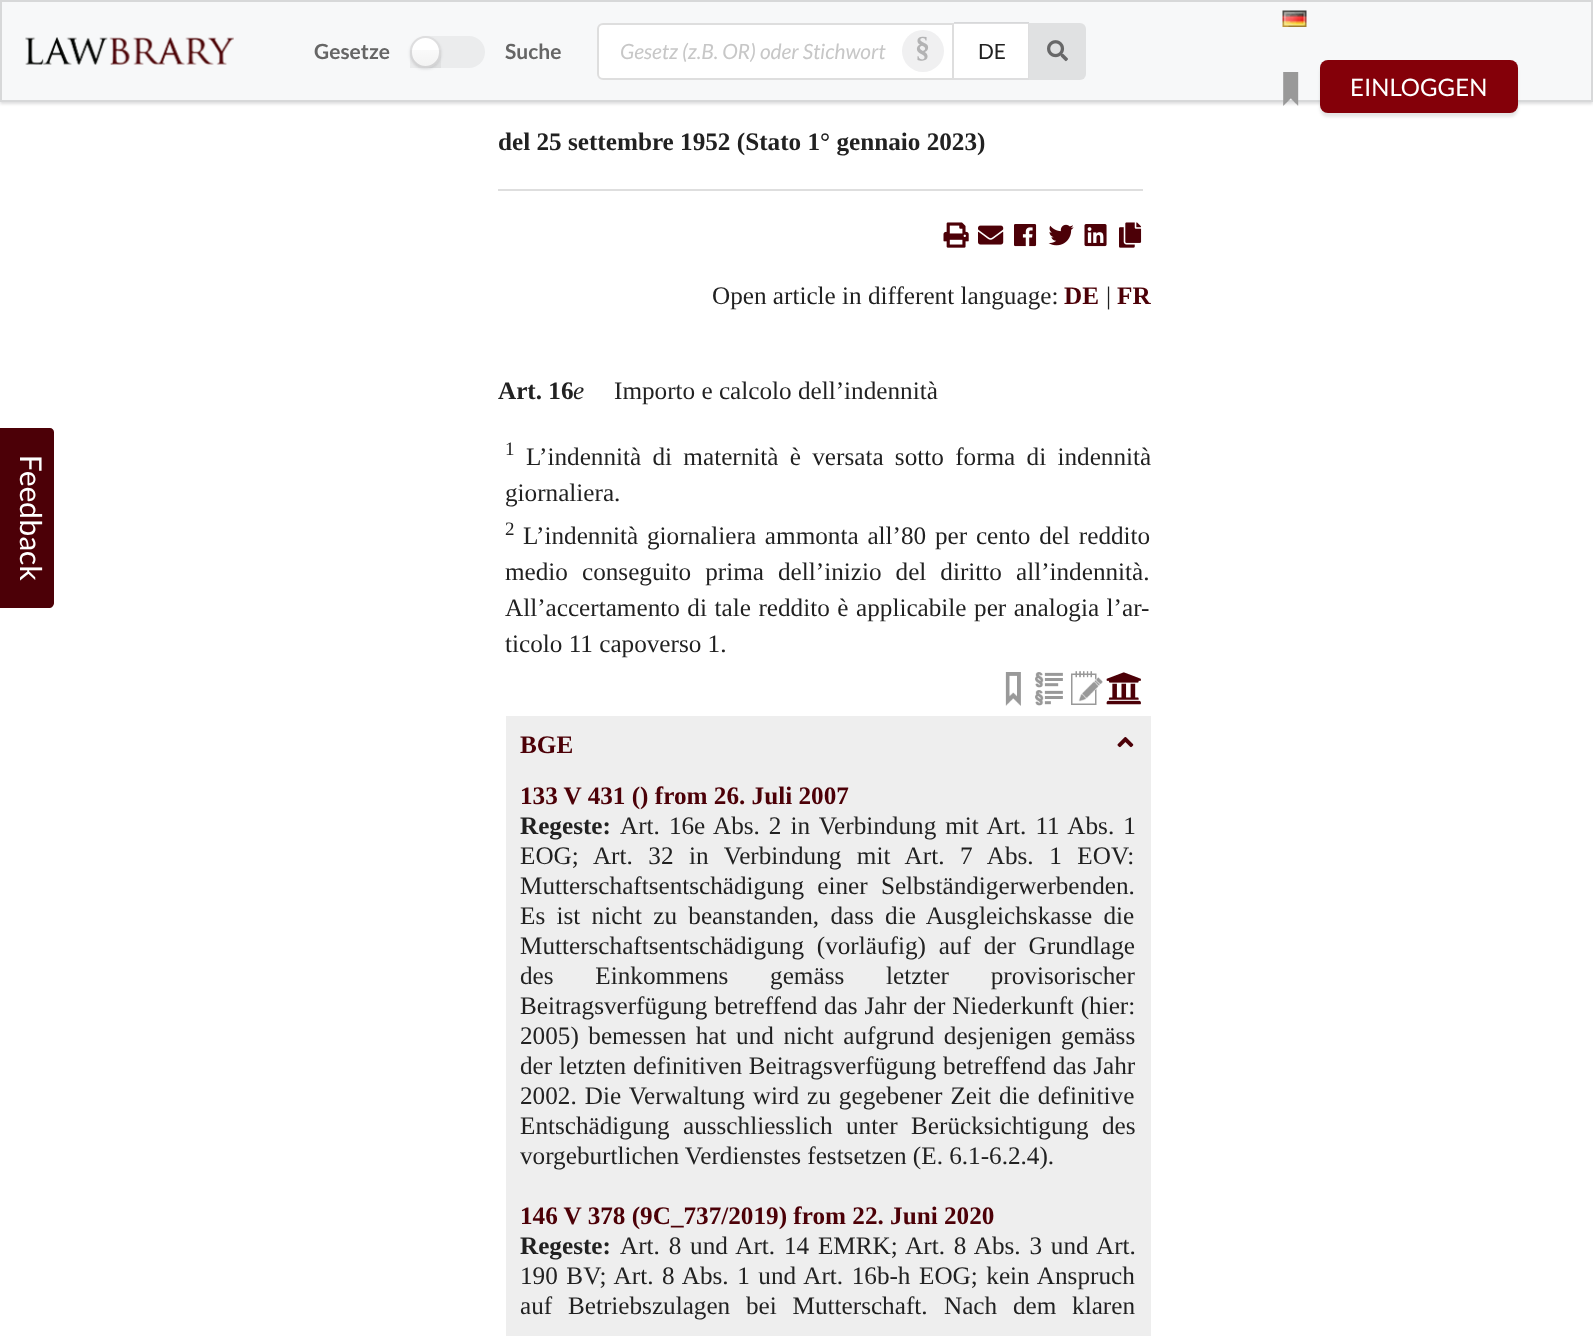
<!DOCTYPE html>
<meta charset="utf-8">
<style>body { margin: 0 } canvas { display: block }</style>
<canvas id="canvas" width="1593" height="1336"></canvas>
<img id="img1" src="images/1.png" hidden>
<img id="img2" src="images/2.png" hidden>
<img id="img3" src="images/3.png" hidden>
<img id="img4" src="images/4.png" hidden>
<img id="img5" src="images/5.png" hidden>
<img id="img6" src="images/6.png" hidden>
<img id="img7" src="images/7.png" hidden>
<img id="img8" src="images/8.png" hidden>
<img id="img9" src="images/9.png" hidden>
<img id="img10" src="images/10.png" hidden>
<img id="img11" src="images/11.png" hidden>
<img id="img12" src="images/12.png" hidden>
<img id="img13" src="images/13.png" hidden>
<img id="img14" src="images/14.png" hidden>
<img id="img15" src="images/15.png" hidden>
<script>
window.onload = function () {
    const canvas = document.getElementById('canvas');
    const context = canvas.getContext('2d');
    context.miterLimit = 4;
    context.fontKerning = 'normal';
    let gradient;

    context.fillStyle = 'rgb(255, 255, 255)';
    context.fillRect(0, 0, 1593, 1336);
    context.fillStyle = 'rgba(34, 36, 38, 0.15)';
    context.filter = 'blur(1.5px)';
    context.beginPath();
    context.rect(0, 2, 1593, 102);
    context.fill();
    context.filter = 'none';
    context.fillStyle = 'rgb(247, 248, 249)';
    context.beginPath();
    context.rect(1, 1, 1591, 100);
    context.fill();
    context.strokeStyle = 'rgb(215, 216, 217)';
    context.lineWidth = 2;
    context.stroke();
    context.drawImage(document.getElementById('img1'), 25, 37, 209, 28);
    context.fillStyle = 'rgb(235, 236, 237)';
    context.beginPath();
    context.roundRect(411, 36, 74, 32, 16);
    context.fill();
    context.fillStyle = 'rgba(34, 36, 38, 0.15)';
    context.filter = 'blur(1.5px)';
    context.beginPath();
    context.roundRect(410, 38, 31, 31, 15.5);
    context.fill();
    context.filter = 'none';
    context.fillStyle = 'rgb(255, 255, 255)';
    context.beginPath();
    context.roundRect(410, 36, 31, 32, 15.5);
    context.fill();
    gradient = context.createLinearGradient(425, 36, 425, 68);
    gradient.addColorStop(0, 'rgba(0, 0, 0, 0)');
    gradient.addColorStop(1, 'rgba(0, 0, 0, 0.05)');
    context.fillStyle = gradient;
    context.fillRect(410, 50, 31, 18);
    context.beginPath();
    context.roundRect(411, 37, 29, 30, 14.5);
    context.strokeStyle = 'rgba(34, 36, 38, 0.15)';
    context.stroke();
    context.fillStyle = 'rgb(255, 255, 255)';
    context.beginPath();
    context.roundRect(598, 24, 355, 55, [5, 0, 0, 5]);
    context.fill();
    context.strokeStyle = 'rgb(222, 222, 222)';
    context.stroke();
    context.fillStyle = 'rgb(240, 240, 241)';
    context.beginPath();
    context.arc(923, 51, 21, 0, 2 * Math.PI);
    context.fill();
    context.fillStyle = 'rgb(255, 255, 255)';
    context.fillRect(954, 23, 75, 57);
    context.fillStyle = 'rgba(34, 36, 38, 0.15)';
    context.beginPath();
    context.moveTo(954, 22);
    context.lineTo(1029, 22);
    context.lineTo(1028, 24);
    context.lineTo(954, 24);
    context.closePath();
    context.fill();
    context.beginPath();
    context.moveTo(1029, 22);
    context.lineTo(1029, 80);
    context.lineTo(1028, 78);
    context.lineTo(1028, 24);
    context.closePath();
    context.fill();
    context.beginPath();
    context.moveTo(1029, 80);
    context.lineTo(954, 80);
    context.lineTo(954, 78);
    context.lineTo(1028, 78);
    context.closePath();
    context.fill();
    context.fillStyle = 'rgb(224, 225, 226)';
    context.beginPath();
    context.roundRect(1029, 23, 57, 57, [0, 6, 6, 0]);
    context.fill();
    context.drawImage(document.getElementById('img2'), 1047, 40, 21, 22);
    context.drawImage(document.getElementById('img3'), 1282, 10, 25, 17);
    context.drawImage(document.getElementById('img4'), 1283, 72, 16, 34);
    context.fillStyle = 'rgba(0, 0, 0, 0.1)';
    context.filter = 'blur(1.5px)';
    context.beginPath();
    context.roundRect(1320, 65, 198, 52, 8);
    context.fill();
    context.filter = 'none';
    context.fillStyle = 'rgb(132, 0, 9)';
    context.beginPath();
    context.roundRect(1320, 60, 198, 53, 8);
    context.fill();
    context.fillStyle = 'rgb(76, 0, 7)';
    context.beginPath();
    context.moveTo(54, 432);
    context.lineTo(54, 603);
    context.bezierCurveTo(54, 605, 52, 608, 50, 608);
    context.lineTo(-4, 608);
    context.bezierCurveTo(-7, 608, -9, 605, -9, 603);
    context.lineTo(-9, 432);
    context.bezierCurveTo(-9, 430, -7, 428, -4, 428);
    context.lineTo(50, 428);
    context.bezierCurveTo(52, 428, 54, 430, 54, 432);
    context.closePath();
    context.fill();
    context.fillStyle = 'rgb(222, 222, 222)';
    context.fillRect(498, 189, 645, 2);
    context.drawImage(document.getElementById('img5'), 943, 222, 26, 26);
    context.drawImage(document.getElementById('img6'), 978, 225, 26, 20);
    context.drawImage(document.getElementById('img7'), 1014, 224, 23, 23);
    context.drawImage(document.getElementById('img8'), 1048, 224, 26, 22);
    context.drawImage(document.getElementById('img9'), 1084, 224, 23, 23);
    context.drawImage(document.getElementById('img10'), 1119, 222, 23, 26);
    context.drawImage(document.getElementById('img11'), 1005, 672, 16, 34);
    context.drawImage(document.getElementById('img12'), 1035, 672, 28, 34);
    context.drawImage(document.getElementById('img13'), 1071, 671, 32, 34);
    context.drawImage(document.getElementById('img14'), 1106, 672, 35, 33);
    context.fillStyle = 'rgb(238, 238, 238)';
    context.fillRect(506, 716, 645, 620);
    context.drawImage(document.getElementById('img15'), 1117, 737, 17, 11);
    context.font = 'bold 21px Lato';
    context.fillStyle = 'rgb(102, 102, 102)';
    context.fillText('Gesetze', 314, 59);
    context.fillText('Suche', 505, 59);
    context.font = 'italic 21px Lato';
    context.fillStyle = 'rgb(199, 199, 199)';
    context.fillText('Gesetz (z.B. OR) oder Stichwort', 620, 59);
    context.font = 'bold 30px Liberation Serif';
    context.fillStyle = 'rgb(179, 179, 180)';
    context.fillText('§', 915, 57);
    context.font = '21px Lato';
    context.fillStyle = 'rgb(33, 33, 33)';
    context.fillText('DE', 978, 59);
    context.font = '24px Lato';
    context.fillStyle = 'rgb(255, 255, 255)';
    context.fillText('EINLOGGEN', 1350, 96);
    context.font = '30px Lato';
    context.save();
    context.translate(20, 455);
    context.rotate(90 * Math.PI / 180);
    context.fillText('Feedback', 0, 0);
    context.restore();
    context.font = 'bold 25.2px Liberation Serif';
    context.fillStyle = 'rgb(33, 33, 33)';
    context.fillText('del 25 settembre 1952 (Stato 1° gennaio 2023)', 498, 150);
    context.font = '25.2px Liberation Serif';
    context.fillText('Open article in different language:', 712, 304);
    context.font = 'bold 25.2px Liberation Serif';
    context.fillStyle = 'rgb(76, 0, 7)';
    context.fillText('DE', 1064, 304);
    context.font = '25.2px Liberation Serif';
    context.fillStyle = 'rgb(33, 33, 33)';
    context.fillText('|', 1106, 304);
    context.font = 'bold 25.2px Liberation Serif';
    context.fillStyle = 'rgb(76, 0, 7)';
    context.fillText('FR', 1117, 304);
    context.fillStyle = 'rgb(33, 33, 33)';
    context.fillText('Art. 16', 498, 399);
    context.font = 'italic 25.2px Liberation Serif';
    context.fillText('e', 573, 399);
    context.font = '25.2px Liberation Serif';
    context.fillText('Importo e calcolo dell’indennità', 614, 399);
    context.font = '19px Liberation Serif';
    context.fillText('1', 505, 455);
    context.wordSpacing = '5px';
    context.font = '25.2px Liberation Serif';
    context.fillText('L’indennità di maternità è versata sotto forma di indennità', 526, 465);
    context.wordSpacing = '0px';
    context.fillText('giornaliera.', 505, 501);
    context.font = '19px Liberation Serif';
    context.fillText('2', 505, 535);
    context.wordSpacing = '2.5px';
    context.font = '25.2px Liberation Serif';
    context.fillText('L’indennità giornaliera ammonta all’80 per cento del reddito', 523, 544);
    context.wordSpacing = '7.75px';
    context.fillText('medio conseguito prima dell’inizio del diritto all’indennità.', 505, 580);
    context.wordSpacing = '1.25px';
    context.fillText('All’accertamento di tale reddito è applicabile per analogia l’ar-', 505, 616);
    context.wordSpacing = '0px';
    context.fillText('ticolo 11 capoverso 1.', 505, 652);
    context.font = 'bold 25.2px Liberation Serif';
    context.fillStyle = 'rgb(76, 0, 7)';
    context.fillText('BGE', 520, 753);
    context.fillText('133 V 431 () from 26. Juli 2007', 520, 804);
    context.fillStyle = 'rgb(33, 33, 33)';
    context.fillText('Regeste:', 520, 834);
    context.wordSpacing = '2.75px';
    context.font = '25.2px Liberation Serif';
    context.fillText('Art. 16e Abs. 2 in Verbindung mit Art. 11 Abs. 1', 620, 834);
    context.wordSpacing = '9.25px';
    context.fillText('EOG; Art. 32 in Verbindung mit Art. 7 Abs. 1 EOV:', 520, 864);
    context.wordSpacing = '7px';
    context.fillText('Mutterschaftsentschädigung einer Selbständigerwerbenden.', 520, 894);
    context.wordSpacing = '5px';
    context.fillText('Es ist nicht zu beanstanden, dass die Ausgleichskasse die', 520, 924);
    context.wordSpacing = '6.5px';
    context.fillText('Mutterschaftsentschädigung (vorläufig) auf der Grundlage', 520, 954);
    context.wordSpacing = '35.5px';
    context.fillText('des Einkommens gemäss letzter provisorischer', 520, 984);
    context.wordSpacing = '0.5px';
    context.fillText('Beitragsverfügung betreffend das Jahr der Niederkunft (hier:', 520, 1014);
    context.wordSpacing = '3.25px';
    context.fillText('2005) bemessen hat und nicht aufgrund desjenigen gemäss', 520, 1044);
    context.wordSpacing = '0.5px';
    context.fillText('der letzten definitiven Beitragsverfügung betreffend das Jahr', 520, 1074);
    context.wordSpacing = '1.75px';
    context.fillText('2002. Die Verwaltung wird zu gegebener Zeit die definitive', 520, 1104);
    context.wordSpacing = '7px';
    context.fillText('Entschädigung ausschliesslich unter Berücksichtigung des', 520, 1134);
    context.wordSpacing = '0px';
    context.fillText('vorgeburtlichen Verdienstes festsetzen (E. 6.1-6.2.4).', 520, 1164);
    context.font = 'bold 25.2px Liberation Serif';
    context.fillStyle = 'rgb(76, 0, 7)';
    context.fillText('146 V 378 (9C_737/2019) from 22. Juni 2020', 520, 1224);
    context.fillStyle = 'rgb(33, 33, 33)';
    context.fillText('Regeste:', 520, 1254);
    context.wordSpacing = '2.5px';
    context.font = '25.2px Liberation Serif';
    context.fillText('Art. 8 und Art. 14 EMRK; Art. 8 Abs. 3 und Art.', 620, 1254);
    context.wordSpacing = '2.25px';
    context.fillText('190 BV; Art. 8 Abs. 1 und Art. 16b-h EOG; kein Anspruch', 520, 1284);
    context.wordSpacing = '9.5px';
    context.fillText('auf Betriebszulagen bei Mutterschaft.', 520, 1314);
    context.fillText('Nach dem klaren', 944, 1314);
};
</script>
